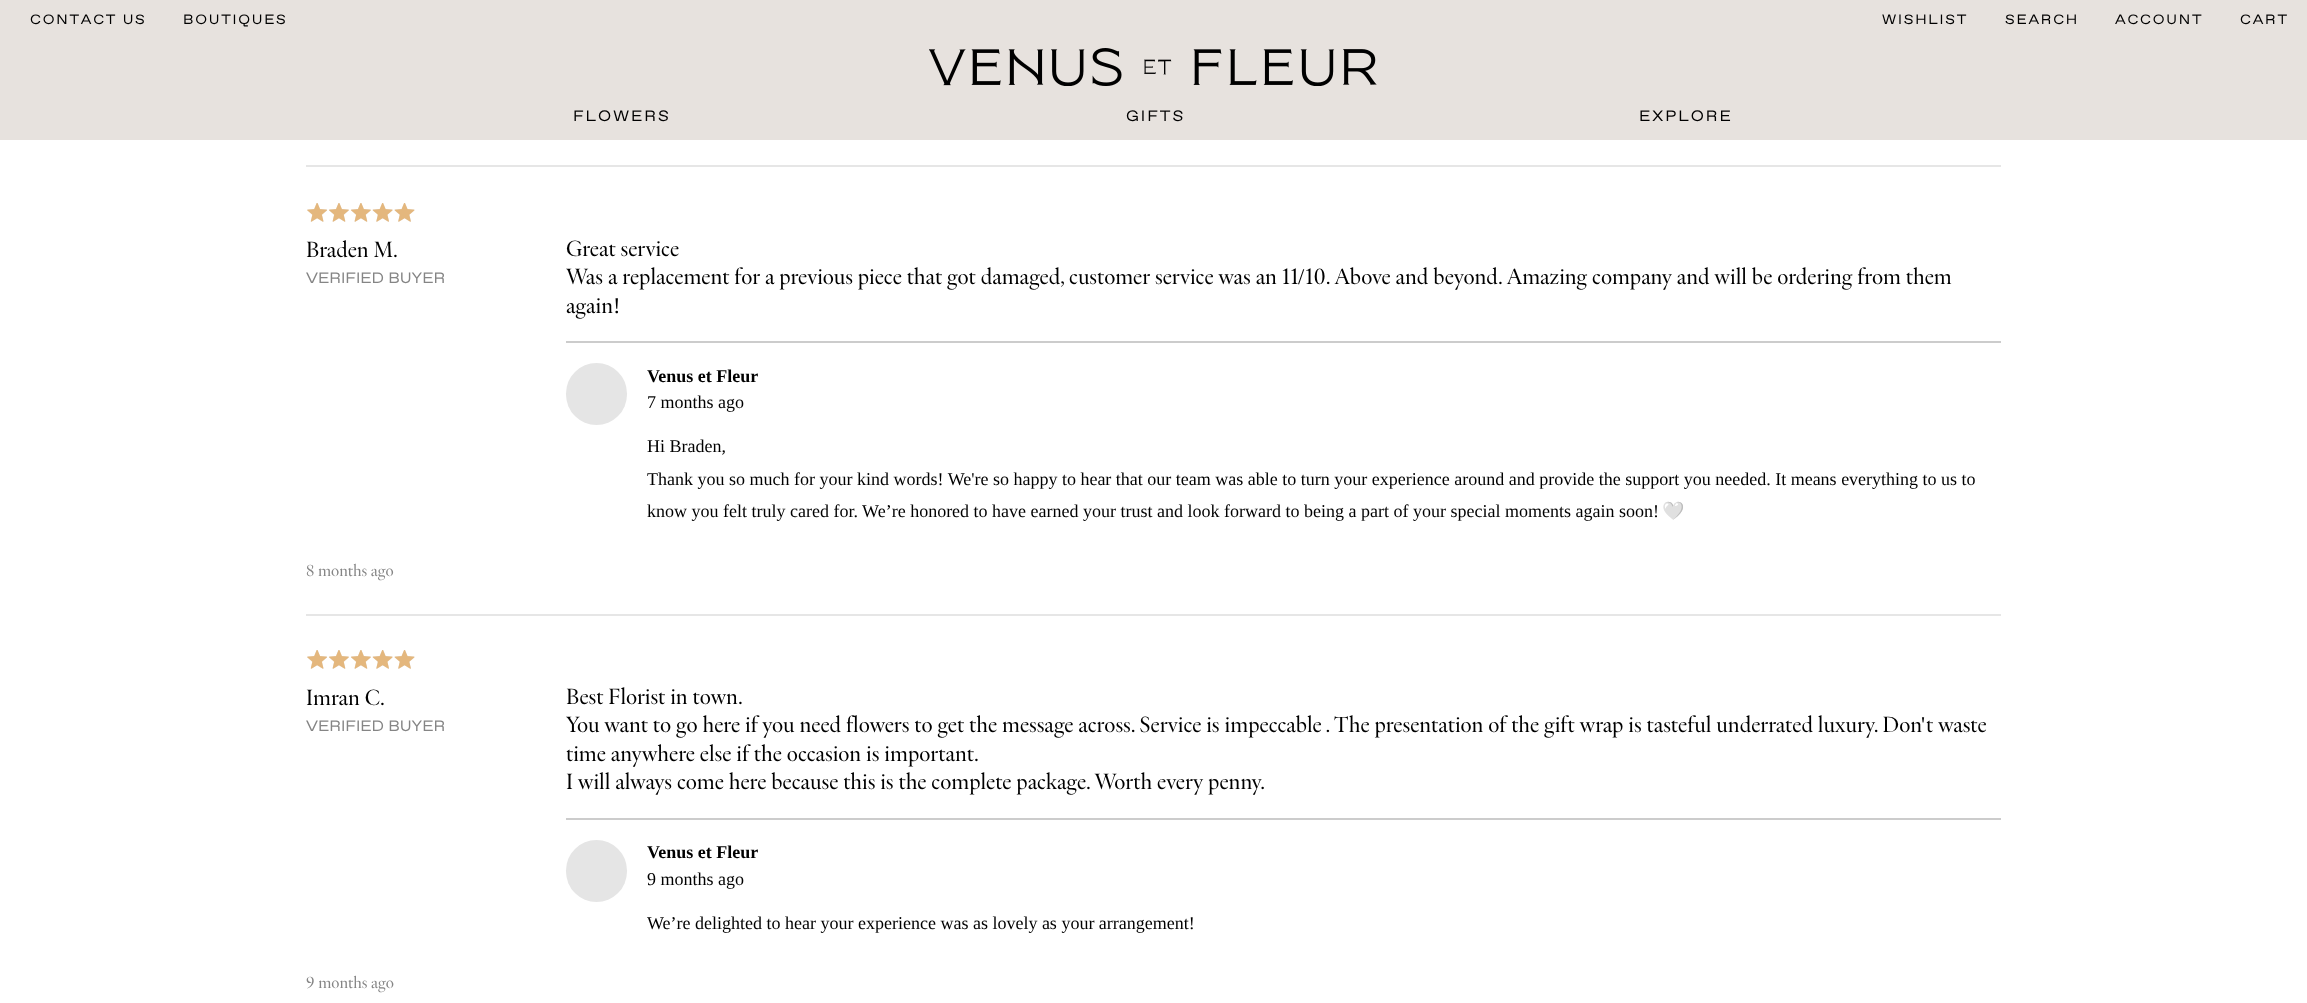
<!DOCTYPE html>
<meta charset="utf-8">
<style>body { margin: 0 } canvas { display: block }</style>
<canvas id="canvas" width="2307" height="1003"></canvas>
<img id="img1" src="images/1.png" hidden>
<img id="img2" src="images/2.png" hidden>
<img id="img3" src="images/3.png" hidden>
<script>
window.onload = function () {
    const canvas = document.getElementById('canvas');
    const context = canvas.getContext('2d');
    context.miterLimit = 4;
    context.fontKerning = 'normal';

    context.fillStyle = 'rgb(255, 255, 255)';
    context.fillRect(0, 0, 2307, 1003);
    context.fillStyle = 'rgb(231, 226, 222)';
    context.fillRect(0, 0, 2307, 140);
    context.drawImage(document.getElementById('img1'), 929, 48, 448, 38);
    context.fillStyle = 'rgb(230, 230, 230)';
    context.fillRect(306, 165, 1695, 2);
    context.fillStyle = 'rgb(204, 204, 204)';
    context.fillRect(566, 341, 1435, 2);
    context.fillStyle = 'rgb(229, 229, 229)';
    context.beginPath();
    context.roundRect(566, 363, 61, 62, 30.5);
    context.fill();
    context.drawImage(document.getElementById('img2'), 307, 203, 108, 19);
    context.drawImage(document.getElementById('img3'), 307, 203, 108, 19);
    context.fillStyle = 'rgb(230, 230, 230)';
    context.fillRect(306, 614, 1695, 2);
    context.fillStyle = 'rgb(204, 204, 204)';
    context.fillRect(566, 818, 1435, 2);
    context.fillStyle = 'rgb(229, 229, 229)';
    context.beginPath();
    context.roundRect(566, 840, 61, 62, 30.5);
    context.fill();
    context.drawImage(document.getElementById('img2'), 307, 650, 108, 19);
    context.drawImage(document.getElementById('img3'), 307, 650, 108, 19);
    context.letterSpacing = '1.75px';
    context.font = '13.5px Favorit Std';
    context.fillStyle = 'rgb(0, 0, 0)';
    context.fillText('CONTACT US', 30, 24);
    context.fillText('BOUTIQUES', 183, 24);
    context.fillText('WISHLIST', 1882, 24);
    context.fillText('SEARCH', 2005, 24);
    context.fillText('ACCOUNT', 2115, 24);
    context.fillText('CART', 2240, 24);
    context.letterSpacing = '2px';
    context.font = '15px Favorit Std';
    context.fillText('FLOWERS', 573, 121);
    context.fillText('GIFTS', 1126, 121);
    context.fillText('EXPLORE', 1639, 121);
    context.letterSpacing = '0px';
    context.font = '22.5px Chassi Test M';
    context.fillText('Braden M.', 306, 257);
    context.font = '15px Favorit Std';
    context.fillStyle = 'rgb(133, 133, 133)';
    context.fillText('VERIFIED BUYER', 306, 283);
    context.font = '22.5px Chassi Test M';
    context.fillStyle = 'rgb(0, 0, 0)';
    context.fillText('Great service', 566, 256);
    context.fillText('Was a replacement for a previous piece that got damaged, customer service was an 11', 566, 284);
    context.font = '22.5px Liberation Serif';
    context.fillText('/', 1298, 284);
    context.font = '22.5px Chassi Test M';
    context.fillText('10. Above and beyond. Amazing company and will be ordering from them', 1305, 284);
    context.fillText('again', 566, 313);
    context.font = '22.5px Liberation Serif';
    context.fillText('!', 613, 313);
    context.font = 'bold 18px Liberation Serif';
    context.fillText('Venus et Fleur', 647, 382);
    context.font = '18px Liberation Serif';
    context.fillText('7 months ago', 647, 408);
    context.fillText('Hi Braden,', 647, 452);
    context.fillText('Thank you so much for your kind words! We\'re so happy to hear that our team was able to turn your experience around and provide the support you needed. It means everything to us to', 647, 485);
    context.fillText('know you felt truly cared for. We’re honored to have earned your trust and look forward to being a part of your special moments again soon!', 647, 517);
    context.font = '18px Noto Color Emoji';
    context.fillText('🤍', 1662, 517);
    context.font = '16.5px Chassi Test M';
    context.fillStyle = 'rgb(133, 133, 133)';
    context.fillText('8 months ago', 306, 576);
    context.font = '22.5px Chassi Test M';
    context.fillStyle = 'rgb(0, 0, 0)';
    context.fillText('Best Florist in town.', 566, 704);
    context.fillText('You want to go here if you need flowers to get the message across. Service is impeccable . The presentation of the gift wrap is tasteful underrated luxury. Don', 566, 732);
    context.font = '22.5px Liberation Serif';
    context.fillText('\'', 1921, 732);
    context.font = '22.5px Chassi Test M';
    context.fillText('t waste', 1926, 732);
    context.fillText('time anywhere else if the occasion is important.', 566, 761);
    context.fillText('I will always come here because this is the complete package. Worth every penny.', 566, 789);
    context.font = 'bold 18px Liberation Serif';
    context.fillText('Venus et Fleur', 647, 858);
    context.font = '18px Liberation Serif';
    context.fillText('9 months ago', 647, 885);
    context.fillText('We’re delighted to hear your experience was as lovely as your arrangement!', 647, 929);
    context.font = '16.5px Chassi Test M';
    context.fillStyle = 'rgb(133, 133, 133)';
    context.fillText('9 months ago', 306, 988);
    context.font = '22.5px Chassi Test M';
    context.fillStyle = 'rgb(0, 0, 0)';
    context.fillText('Imran C.', 306, 705);
    context.font = '15px Favorit Std';
    context.fillStyle = 'rgb(133, 133, 133)';
    context.fillText('VERIFIED BUYER', 306, 731);
};
</script>
